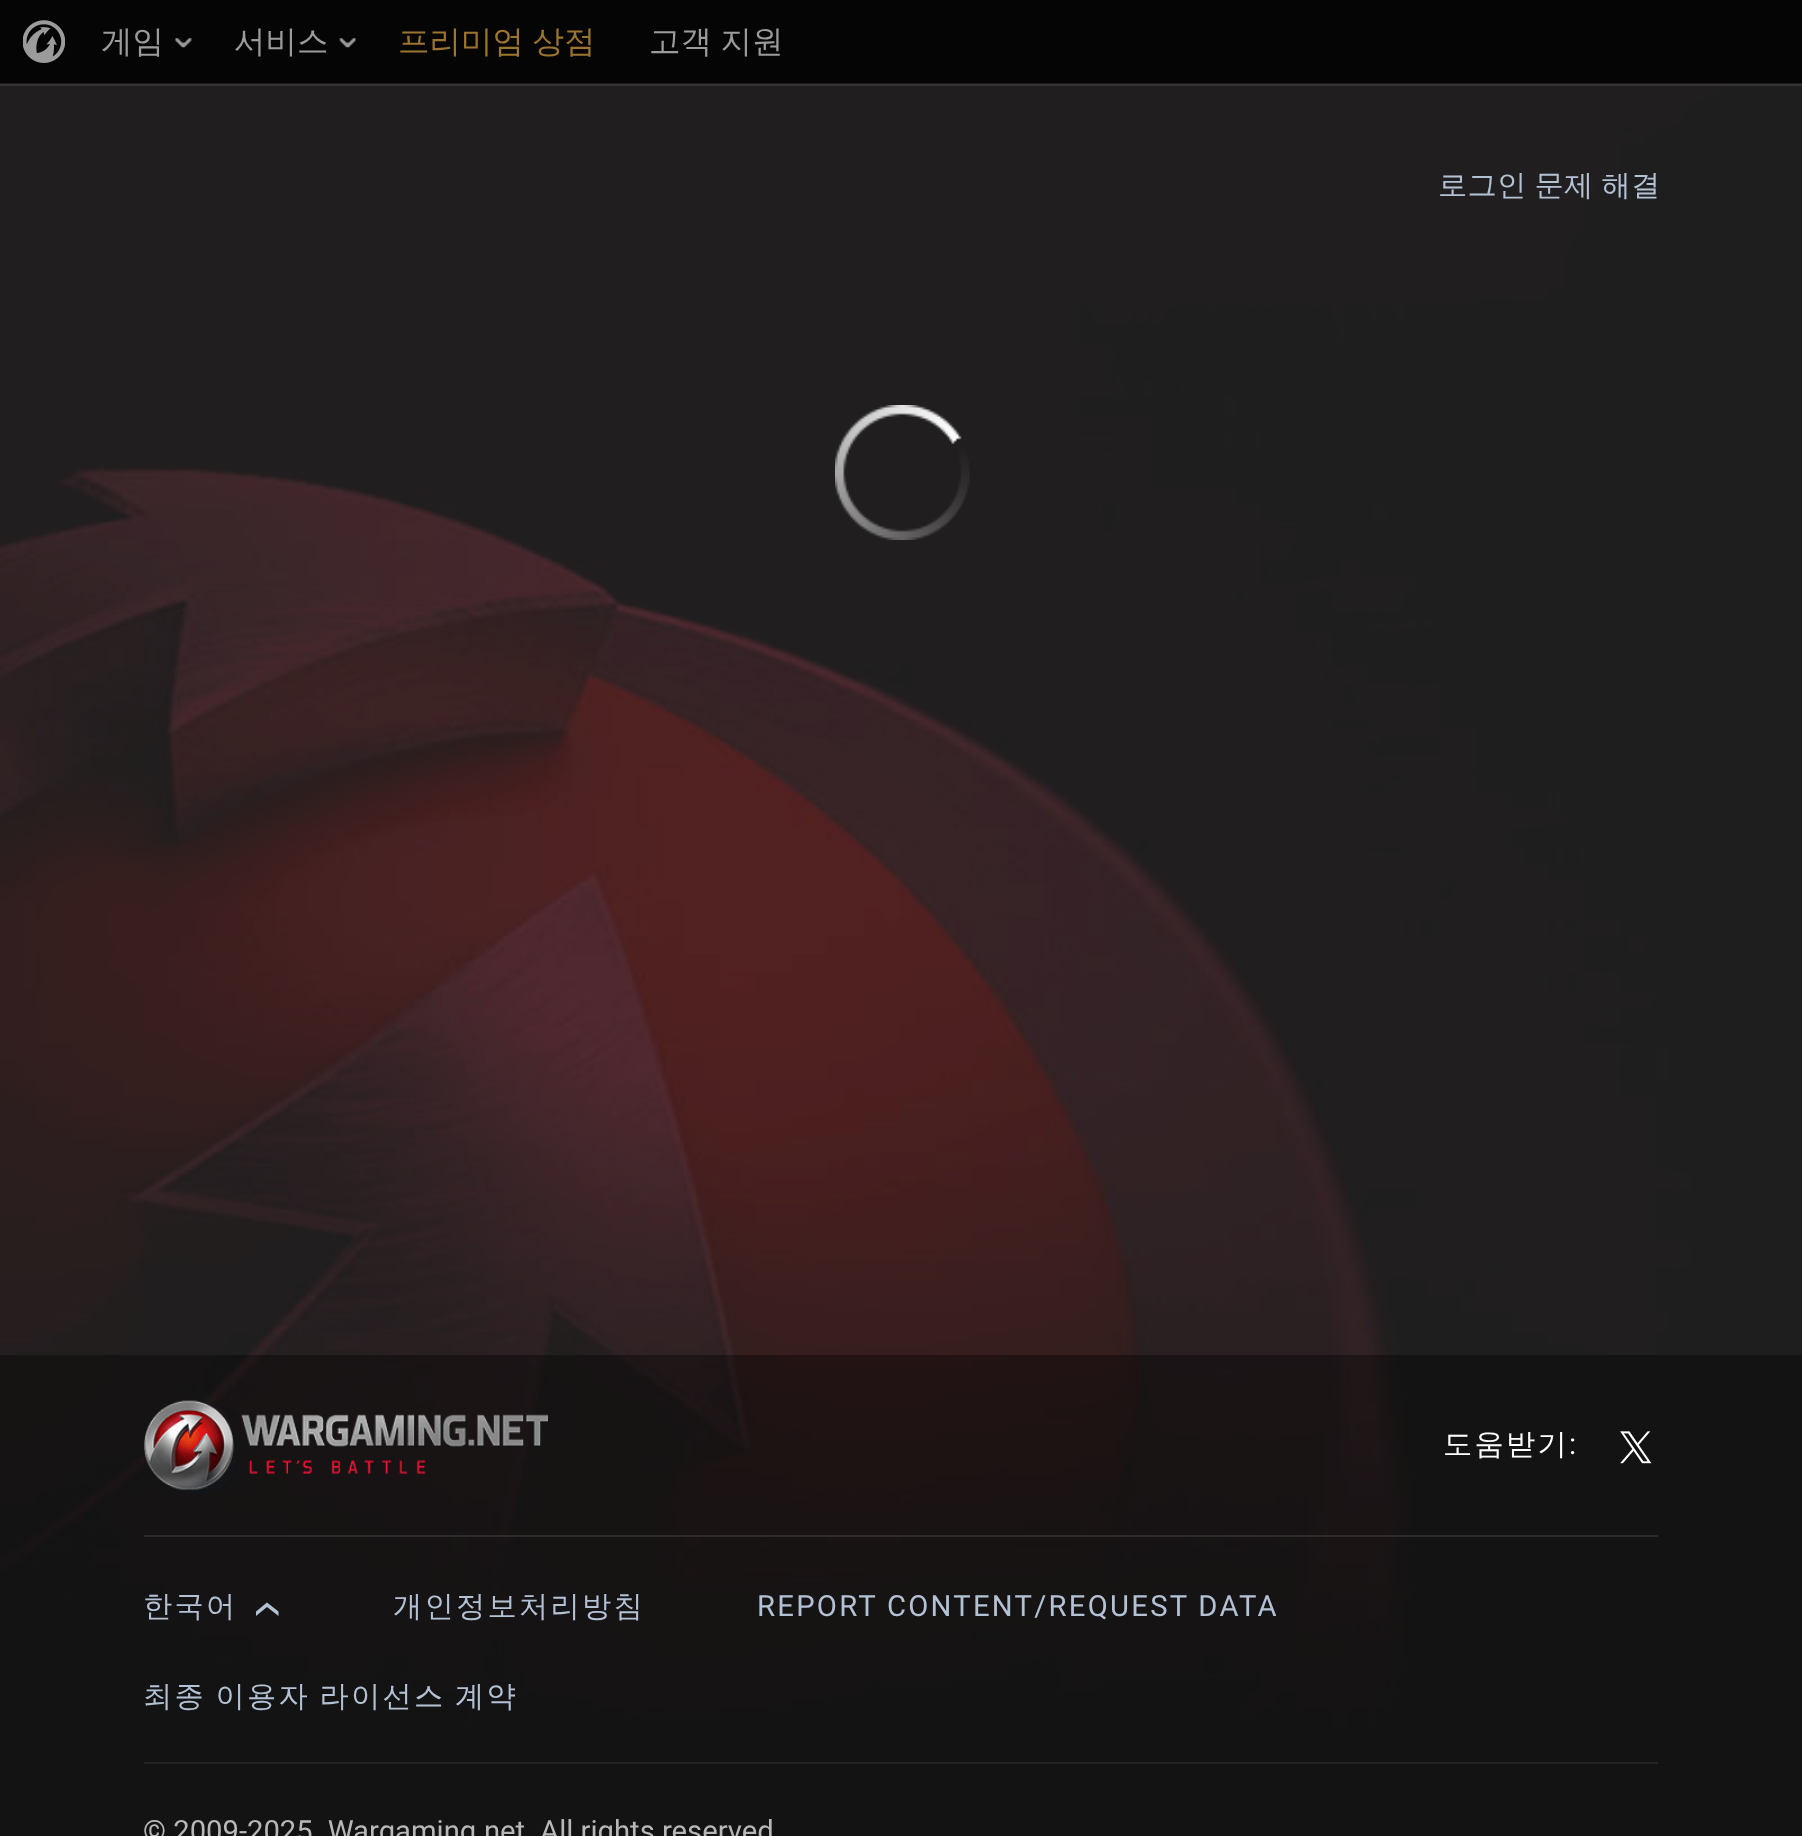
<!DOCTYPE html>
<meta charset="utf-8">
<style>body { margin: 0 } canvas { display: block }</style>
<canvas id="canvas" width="1802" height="1836"></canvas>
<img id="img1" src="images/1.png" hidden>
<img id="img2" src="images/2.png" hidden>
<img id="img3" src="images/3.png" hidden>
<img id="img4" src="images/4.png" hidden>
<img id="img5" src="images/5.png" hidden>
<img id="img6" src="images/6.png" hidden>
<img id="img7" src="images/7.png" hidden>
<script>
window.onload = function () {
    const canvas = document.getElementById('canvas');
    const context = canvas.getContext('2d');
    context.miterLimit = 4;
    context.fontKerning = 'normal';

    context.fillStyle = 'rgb(30, 30, 30)';
    context.fillRect(0, 0, 1802, 1836);
    context.drawImage(document.getElementById('img1'), 0, 83, 1802, 1669);
    context.fillStyle = 'rgb(5, 5, 5)';
    context.fillRect(0, 0, 1802, 83);
    context.strokeStyle = 'rgba(255, 255, 255, 0.1)';
    context.lineWidth = 2;
    context.strokeRect(-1, -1, 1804, 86);
    context.drawImage(document.getElementById('img2'), 23, 20, 42, 43);
    context.drawImage(document.getElementById('img3'), 175, 38, 17, 10);
    context.drawImage(document.getElementById('img4'), 339, 38, 17, 10);
    context.drawImage(document.getElementById('img5'), 835, 405, 135, 135);
    context.fillStyle = 'rgba(0, 0, 0, 0.35)';
    context.fillRect(0, 1355, 1802, 481);
    context.drawImage(document.getElementById('img6'), 144, 1400, 405, 94);
    context.drawImage(document.getElementById('img7'), 1620, 1431, 32, 33);
    context.fillStyle = 'rgba(255, 255, 255, 0.1)';
    context.fillRect(144, 1535, 1514, 2);
    context.fillStyle = 'rgb(179, 193, 213)';
    context.beginPath();
    context.moveTo(256, 1616);
    context.lineTo(267, 1607);
    context.lineTo(278.5, 1616);
    context.lineTo(278.5, 1611.5);
    context.lineTo(267, 1602.5);
    context.lineTo(256, 1611.5);
    context.closePath();
    context.fill();
    context.fillStyle = 'rgb(36, 36, 36)';
    context.fillRect(144, 1762, 1514, 2);
    context.font = '500 31.5px WenQuanYi Zen Hei';
    context.fillStyle = 'rgb(155, 155, 155)';
    context.fillText('게임', 101, 52);
    context.fillText('서비스', 234, 52);
    context.wordSpacing = '-1px';
    context.fillStyle = 'rgb(155, 116, 48)';
    context.fillText('프리미엄 상점', 398, 52);
    context.fillStyle = 'rgb(155, 155, 155)';
    context.fillText('고객 지원', 649, 52);
    context.letterSpacing = '0.25px';
    context.font = '500 29.25px WenQuanYi Zen Hei';
    context.fillStyle = 'rgb(179, 193, 213)';
    context.fillText('로그인 문제 해결', 1438, 195);
    context.letterSpacing = '2.25px';
    context.wordSpacing = '0px';
    context.fillStyle = 'rgb(255, 255, 255)';
    context.fillText('도움받기', 1443, 1454);
    context.font = '29.25px Roboto';
    context.fillText(':', 1569, 1454);
    context.font = '500 29.25px WenQuanYi Zen Hei';
    context.fillStyle = 'rgb(179, 193, 213)';
    context.fillText('한국어', 143, 1616);
    context.fillText('개인정보처리방침', 393, 1616);
    context.font = '29.25px Roboto';
    context.fillText('REPORT CONTENT/REQUEST DATA', 757, 1616);
    context.wordSpacing = '-1.5px';
    context.font = '500 29.25px WenQuanYi Zen Hei';
    context.fillText('최종 이용자 라이선스 계약', 143, 1706);
    context.letterSpacing = '0px';
    context.wordSpacing = '0px';
    context.font = '29.25px Roboto';
    context.fillStyle = 'rgb(184, 184, 184)';
    context.fillText('© 2009-2025. Wargaming.net. All rights reserved', 143, 1841);
};
</script>
